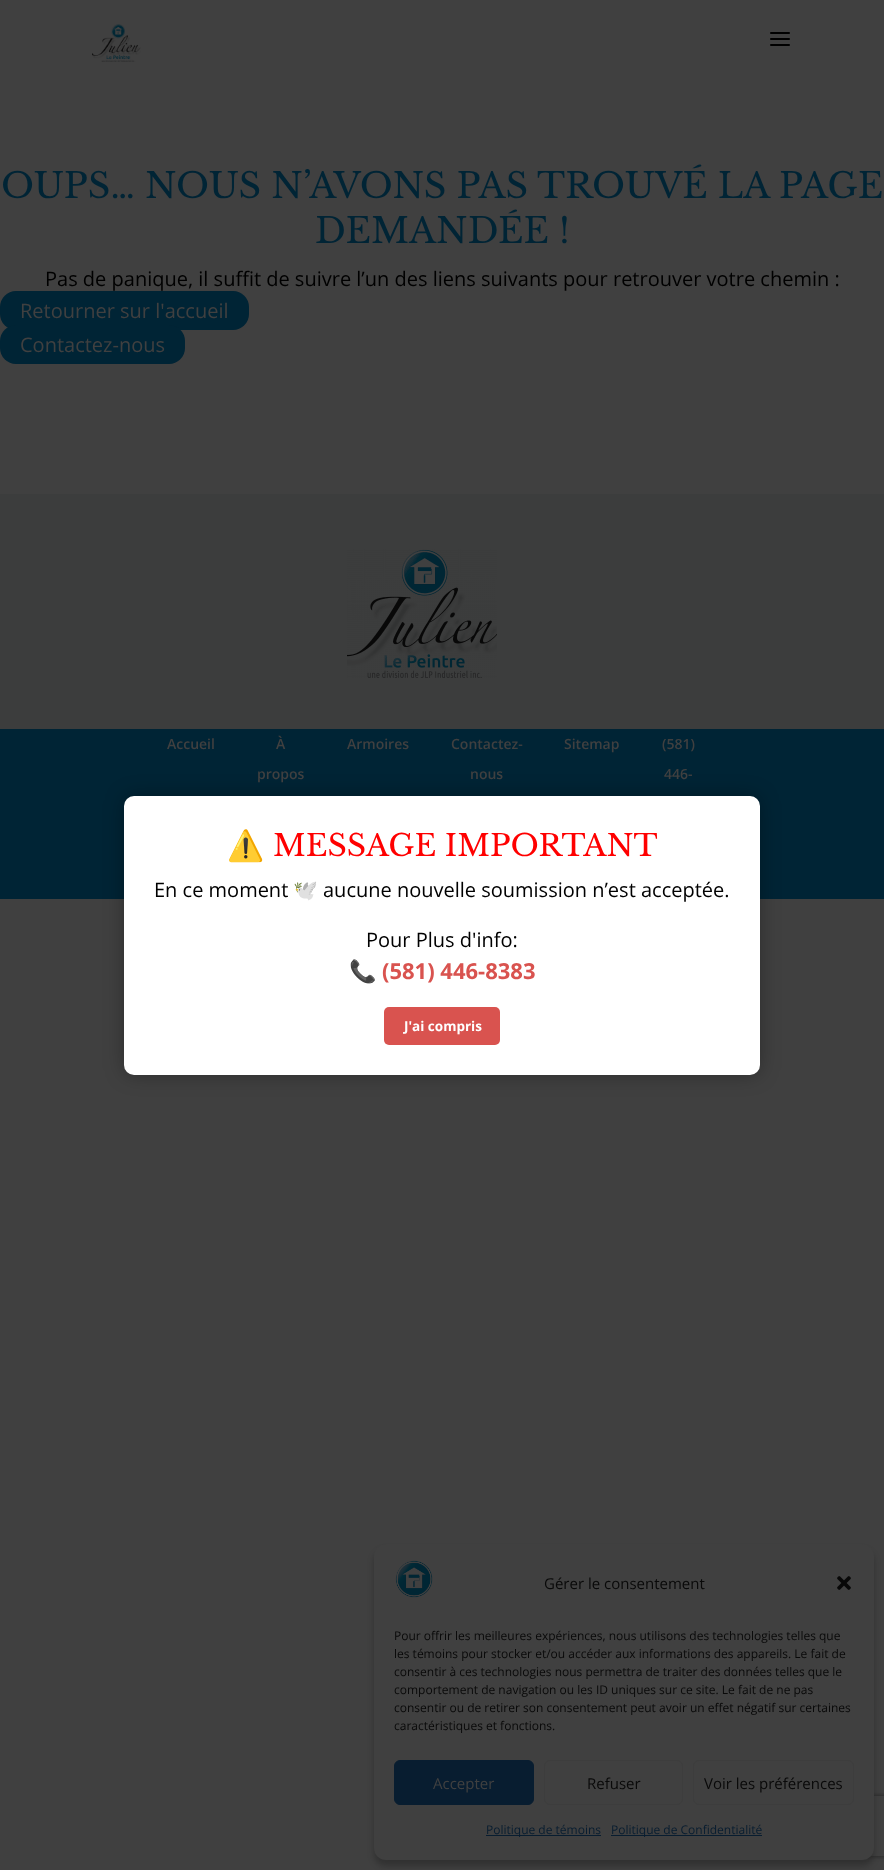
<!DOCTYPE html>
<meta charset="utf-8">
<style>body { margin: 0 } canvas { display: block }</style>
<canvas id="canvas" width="884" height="1870"></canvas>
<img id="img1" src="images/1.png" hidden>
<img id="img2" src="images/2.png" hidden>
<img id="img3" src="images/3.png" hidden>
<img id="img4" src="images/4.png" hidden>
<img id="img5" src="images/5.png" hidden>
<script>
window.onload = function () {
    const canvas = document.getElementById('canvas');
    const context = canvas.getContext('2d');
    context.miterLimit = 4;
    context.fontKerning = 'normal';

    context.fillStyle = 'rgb(64, 64, 64)';
    context.fillRect(0, 0, 884, 1870);
    context.drawImage(document.getElementById('img1'), 92, 24, 49, 38);
    context.drawImage(document.getElementById('img2'), 770, 32, 20, 14);
    context.fillStyle = 'rgb(0, 36, 53)';
    context.beginPath();
    context.roundRect(0, 291, 249, 39, 16);
    context.fill();
    context.beginPath();
    context.roundRect(0, 325, 185, 39, 16);
    context.fill();
    context.fillStyle = 'rgb(60, 61, 61)';
    context.fillRect(0, 494, 884, 235);
    context.drawImage(document.getElementById('img3'), 347, 549, 150, 129);
    context.fillStyle = 'rgb(0, 36, 53)';
    context.fillRect(0, 729, 884, 170);
    context.fillStyle = 'rgba(0, 0, 0, 0.3)';
    context.filter = 'blur(10px)';
    context.beginPath();
    context.roundRect(124, 796, 636, 279, 10);
    context.fill();
    context.filter = 'none';
    context.fillStyle = 'rgb(255, 255, 255)';
    context.beginPath();
    context.roundRect(124, 796, 636, 279, 10);
    context.fill();
    context.fillStyle = 'rgb(217, 83, 79)';
    context.beginPath();
    context.roundRect(384, 1007, 116, 38, 5);
    context.fill();
    context.fillStyle = 'rgba(0, 0, 0, 0.23)';
    context.filter = 'blur(3px)';
    context.beginPath();
    context.roundRect(374, 1550, 500, 316, 12);
    context.fill();
    context.filter = 'none';
    context.save();
    context.beginPath();
    context.moveTo(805, 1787);
    context.lineTo(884, 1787);
    context.lineTo(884, 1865);
    context.lineTo(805, 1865);
    context.closePath();
    context.moveTo(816, 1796);
    context.lineTo(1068, 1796);
    context.bezierCurveTo(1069, 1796, 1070, 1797, 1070, 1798);
    context.lineTo(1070, 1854);
    context.bezierCurveTo(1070, 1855, 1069, 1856, 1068, 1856);
    context.lineTo(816, 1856);
    context.bezierCurveTo(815, 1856, 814, 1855, 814, 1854);
    context.lineTo(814, 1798);
    context.bezierCurveTo(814, 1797, 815, 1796, 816, 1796);
    context.closePath();
    context.clip('evenodd');
    context.fillStyle = 'rgb(32, 32, 32)';
    context.filter = 'blur(2.5px)';
    context.beginPath();
    context.roundRect(814, 1796, 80, 60, 2);
    context.fill();
    context.filter = 'none';
    context.restore();
    context.fillStyle = 'rgb(64, 64, 64)';
    context.beginPath();
    context.roundRect(374, 1544, 500, 316, 12);
    context.fill();
    context.drawImage(document.getElementById('img4'), 395, 1560, 38, 38);
    context.drawImage(document.getElementById('img5'), 837, 1576, 14, 14);
    context.fillStyle = 'rgb(8, 29, 48)';
    context.beginPath();
    context.roundRect(394.5, 1760.5, 139, 44, 5.5);
    context.fill();
    context.strokeStyle = 'rgb(8, 29, 48)';
    context.stroke();
    context.beginPath();
    context.roundRect(544.5, 1760.5, 138, 44, 5.5);
    context.strokeStyle = 'rgb(61, 61, 61)';
    context.stroke();
    context.beginPath();
    context.roundRect(693.5, 1760.5, 160, 44, 5.5);
    context.stroke();
    context.fillRect(486, 1835, 115, 1);
    context.fillRect(611, 1835, 151, 1);
    context.font = '35px Libre Baskerville';
    context.fillStyle = 'rgb(0, 36, 53)';
    context.fillText('OUPS… NOUS N’AVONS PAS TROUVÉ LA PAGE', 1, 198);
    context.fillText('DEMANDÉE !', 315, 243);
    context.font = '20px Open Sans';
    context.fillStyle = 'rgb(0, 0, 0)';
    context.fillText('Pas de panique, il suffit de suivre l’un des liens suivants pour retrouver votre chemin :', 45, 286);
    context.fillStyle = 'rgb(64, 64, 64)';
    context.fillText('Retourner sur l\'accueil', 20, 318);
    context.fillText('Contactez-nous', 20, 352);
    context.font = '600 14px Open Sans';
    context.fillText('Accueil', 167, 749);
    context.fillText('À', 276, 749);
    context.fillText('propos', 257, 779);
    context.fillText('Armoires', 347, 749);
    context.fillText('Contactez-', 451, 749);
    context.fillText('nous', 470, 779);
    context.fillText('Sitemap', 564, 749);
    context.fillText('(581)', 662, 749);
    context.fillText('446-', 664, 779);
    context.font = '30px Noto Color Emoji';
    context.fillStyle = 'rgb(255, 0, 0)';
    context.fillText('⚠️', 227, 856);
    context.font = '30px Libre Baskerville';
    context.fillText('MESSAGE IMPORTANT', 273, 856);
    context.font = '20px Open Sans';
    context.fillStyle = 'rgb(0, 0, 0)';
    context.fillText('En ce moment', 154, 897);
    context.font = '20px Noto Color Emoji';
    context.fillText('🕊️', 293, 897);
    context.font = '20px Open Sans';
    context.fillText('aucune nouvelle soumission n’est acceptée.', 323, 897);
    context.fillText('Pour Plus d\'info:', 366, 947);
    context.font = 'bold 22px Noto Color Emoji';
    context.fillStyle = 'rgb(217, 83, 79)';
    context.fillText('📞', 349, 979);
    context.font = 'bold 22px Open Sans';
    context.fillText('(581) 446-8383', 382, 979);
    context.font = 'bold 13.5px Open Sans';
    context.fillStyle = 'rgb(255, 255, 255)';
    context.fillText('J\'ai compris', 404, 1031);
    context.font = '15px Open Sans';
    context.fillStyle = 'rgb(9, 9, 9)';
    context.fillText('Gérer le consentement', 544, 1589);
    context.font = '12px Open Sans';
    context.fillText('Pour offrir les meilleures expériences, nous utilisons des technologies telles que', 394, 1640);
    context.fillText('les témoins pour stocker et/ou accéder aux informations des appareils. Le fait de', 394, 1658);
    context.fillText('consentir à ces technologies nous permettra de traiter des données telles que le', 394, 1676);
    context.fillText('comportement de navigation ou les ID uniques sur ce site. Le fait de ne pas', 394, 1694);
    context.fillText('consentir ou de retirer son consentement peut avoir un effet négatif sur certaines', 394, 1712);
    context.fillText('caractéristiques et fonctions.', 394, 1730);
    context.font = '15px Open Sans';
    context.fillStyle = 'rgb(64, 64, 64)';
    context.fillText('Accepter', 433, 1789);
    context.fillStyle = 'rgb(9, 9, 9)';
    context.fillText('Refuser', 587, 1789);
    context.fillText('Voir les préférences', 704, 1789);
    context.font = '12px Open Sans';
    context.fillStyle = 'rgb(8, 29, 48)';
    context.fillText('Politique de témoins', 486, 1834);
    context.fillText('Politique de Confidentialité', 611, 1834);
};
</script>
